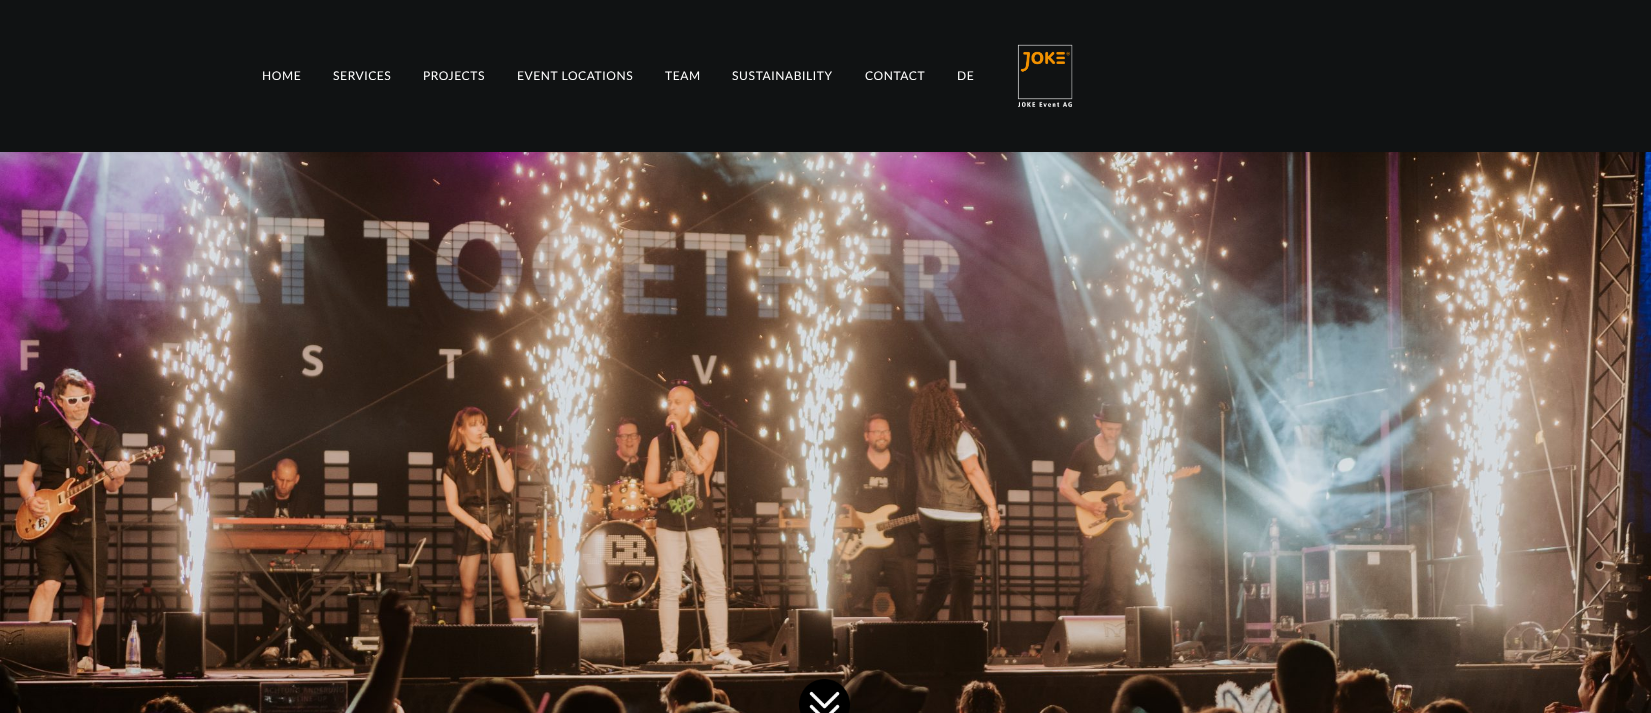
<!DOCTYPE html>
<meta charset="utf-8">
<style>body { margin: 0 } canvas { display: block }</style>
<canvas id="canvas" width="1651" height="713"></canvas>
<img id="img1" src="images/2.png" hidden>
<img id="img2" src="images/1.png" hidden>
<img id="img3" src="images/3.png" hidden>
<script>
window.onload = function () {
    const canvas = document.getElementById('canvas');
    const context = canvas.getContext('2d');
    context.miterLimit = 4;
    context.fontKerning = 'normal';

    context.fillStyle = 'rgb(255, 255, 255)';
    context.fillRect(0, 0, 1651, 713);
    context.drawImage(document.getElementById('img1'), 0, 152, 1651, 561);
    context.fillStyle = 'rgba(0, 0, 0, 0.6)';
    context.filter = 'blur(5px)';
    context.beginPath();
    context.rect(8, 14, 1636, 132);
    context.fill();
    context.filter = 'none';
    context.fillStyle = 'rgb(16, 18, 19)';
    context.fillRect(0, 0, 1651, 152);
    context.drawImage(document.getElementById('img2'), 1017, 44, 56, 64);
    context.drawImage(document.getElementById('img3'), 799, 679, 51, 34);
    context.letterSpacing = '0.6px';
    context.font = '12px Lato';
    context.fillStyle = 'rgb(255, 255, 255)';
    context.fillText('HOME', 262, 80);
    context.fillText('SERVICES', 333, 80);
    context.fillText('PROJECTS', 423, 80);
    context.fillText('EVENT LOCATIONS', 517, 80);
    context.fillText('TEAM', 665, 80);
    context.fillText('SUSTAINABILITY', 732, 80);
    context.fillText('CONTACT', 865, 80);
    context.fillText('DE', 957, 80);
};
</script>
